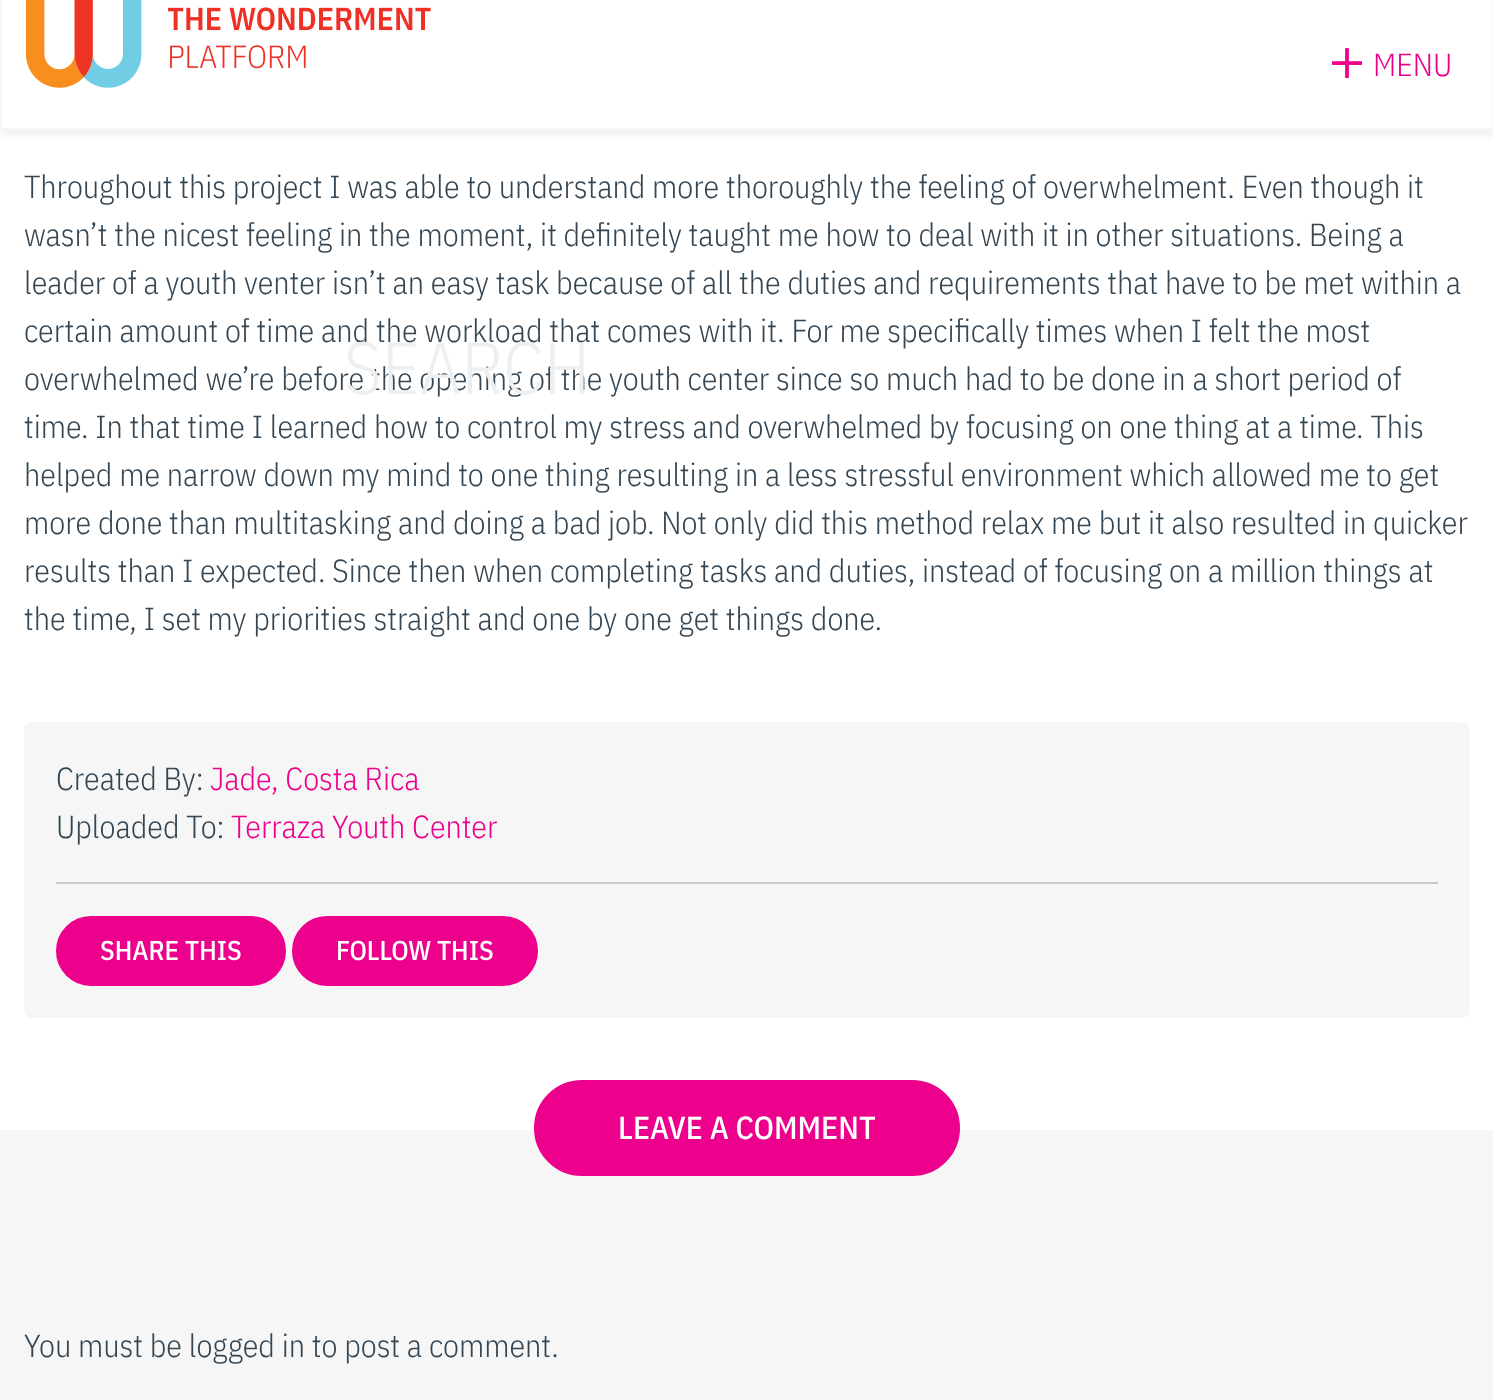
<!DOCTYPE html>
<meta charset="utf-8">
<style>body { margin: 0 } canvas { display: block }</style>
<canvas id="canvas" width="1493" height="1400"></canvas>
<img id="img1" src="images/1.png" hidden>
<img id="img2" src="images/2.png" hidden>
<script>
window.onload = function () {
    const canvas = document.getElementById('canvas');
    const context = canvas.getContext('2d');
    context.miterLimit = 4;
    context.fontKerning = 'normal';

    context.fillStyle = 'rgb(255, 255, 255)';
    context.fillRect(0, 0, 1493, 1400);
    context.fillStyle = 'rgba(0, 0, 0, 0.05)';
    context.filter = 'blur(3px)';
    context.beginPath();
    context.rect(0, -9, 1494, 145);
    context.fill();
    context.filter = 'none';
    context.strokeStyle = 'rgb(246, 246, 246)';
    context.lineWidth = 2;
    context.strokeRect(1, -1, 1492, 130);
    context.fillStyle = 'rgb(255, 255, 255)';
    context.fillRect(2, 0, 1490, 128);
    context.drawImage(document.getElementById('img1'), 26, 0, 405, 88);
    context.drawImage(document.getElementById('img2'), 1332, 48, 30, 31);
    context.fillStyle = 'rgb(246, 246, 246)';
    context.beginPath();
    context.roundRect(24, 722, 1446, 296, 8);
    context.fill();
    context.fillStyle = 'rgb(198, 202, 205)';
    context.fillRect(56, 882, 1382, 2);
    context.fillStyle = 'rgb(236, 0, 140)';
    context.beginPath();
    context.roundRect(58, 918, 226, 66, 33);
    context.fill();
    context.strokeStyle = 'rgb(236, 0, 140)';
    context.lineWidth = 4;
    context.stroke();
    context.beginPath();
    context.roundRect(294, 918, 242, 66, 33);
    context.fill();
    context.stroke();
    context.fillStyle = 'rgb(246, 246, 246)';
    context.fillRect(0, 1130, 1493, 270);
    context.fillStyle = 'rgb(236, 0, 140)';
    context.beginPath();
    context.roundRect(536, 1082, 422, 92, 46);
    context.fill();
    context.stroke();
    context.font = '300 32px IBM Plex Sans Condensed';
    context.fillText('MENU', 1373, 76);
    context.fillStyle = 'rgb(52, 70, 83)';
    context.fillText('Throughout this project I was able to understand more thoroughly the feeling of overwhelment. Even though it', 24, 198);
    context.fillText('wasn’t the nicest feeling in the moment, it definitely taught me how to deal with it in other situations. Being a', 24, 246);
    context.fillText('leader of a youth venter isn’t an easy task because of all the duties and requirements that have to be met within a', 24, 294);
    context.fillText('certain amount of time and the workload that comes with it. For me specifically times when I felt the most', 24, 342);
    context.fillText('overwhelmed we’re before the opening of the youth center since so much had to be done in a short period of', 24, 390);
    context.font = '300 73.5px IBM Plex Sans Condensed';
    context.fillStyle = 'rgb(238, 239, 240)';
    context.fillText('SEARCH', 344, 394);
    context.font = '300 32px IBM Plex Sans Condensed';
    context.fillStyle = 'rgb(52, 70, 83)';
    context.fillText('time. In that time I learned how to control my stress and overwhelmed by focusing on one thing at a time. This', 24, 438);
    context.fillText('helped me narrow down my mind to one thing resulting in a less stressful environment which allowed me to get', 24, 486);
    context.fillText('more done than multitasking and doing a bad job. Not only did this method relax me but it also resulted in quicker', 24, 534);
    context.fillText('results than I expected. Since then when completing tasks and duties, instead of focusing on a million things at', 24, 582);
    context.fillText('the time, I set my priorities straight and one by one get things done.', 24, 630);
    context.fillText('Created By:', 56, 790);
    context.fillStyle = 'rgb(236, 0, 140)';
    context.fillText('Jade, Costa Rica', 210, 790);
    context.fillStyle = 'rgb(52, 70, 83)';
    context.fillText('Uploaded To:', 56, 838);
    context.fillStyle = 'rgb(236, 0, 140)';
    context.fillText('Terraza Youth Center', 231, 838);
    context.font = '500 27.25px IBM Plex Sans Condensed';
    context.fillStyle = 'rgb(255, 255, 255)';
    context.fillText('SHARE THIS', 100, 960);
    context.fillText('FOLLOW THIS', 336, 960);
    context.font = '500 32px IBM Plex Sans Condensed';
    context.fillText('LEAVE A COMMENT', 618, 1139);
    context.font = '300 32px IBM Plex Sans Condensed';
    context.fillStyle = 'rgb(52, 70, 83)';
    context.fillText('You must be logged in to post a comment.', 24, 1357);
};
</script>
